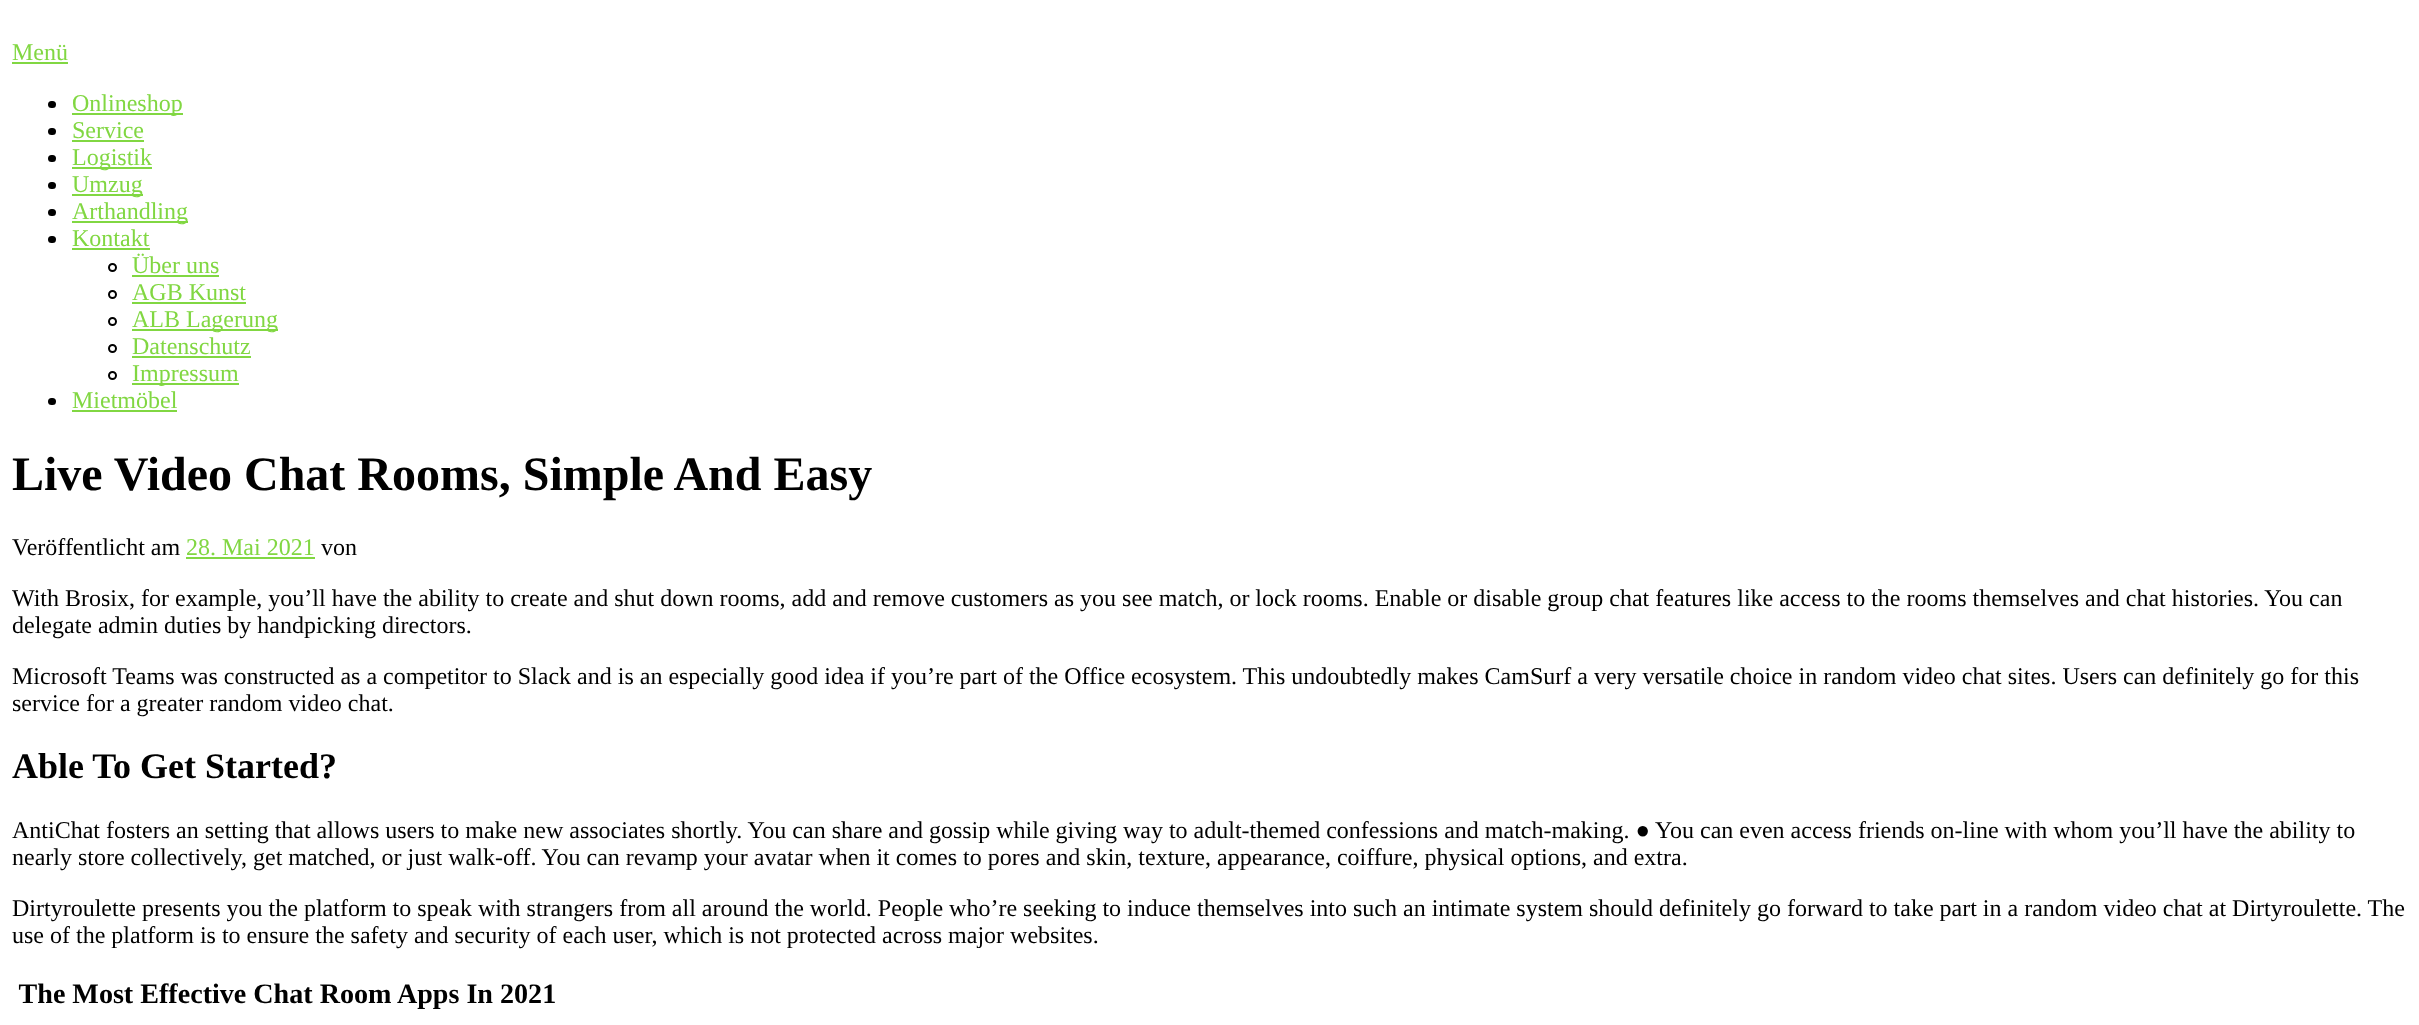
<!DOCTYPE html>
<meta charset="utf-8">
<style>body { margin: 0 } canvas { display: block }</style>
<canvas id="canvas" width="2419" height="1025"></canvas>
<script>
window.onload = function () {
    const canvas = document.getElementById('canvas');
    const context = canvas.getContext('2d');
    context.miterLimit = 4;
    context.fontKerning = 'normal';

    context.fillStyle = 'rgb(255, 255, 255)';
    context.fillRect(0, 0, 2419, 1025);
    context.fillStyle = 'rgb(129, 215, 66)';
    context.fillRect(12, 62, 56, 2);
    context.fillStyle = 'rgb(0, 0, 0)';
    context.beginPath();
    context.roundRect(48, 101, 8, 7, 3.5);
    context.fill();
    context.fillStyle = 'rgb(129, 215, 66)';
    context.fillRect(72, 113, 111, 2);
    context.fillStyle = 'rgb(0, 0, 0)';
    context.beginPath();
    context.roundRect(48, 128, 8, 7, 3.5);
    context.fill();
    context.fillStyle = 'rgb(129, 215, 66)';
    context.fillRect(72, 140, 72, 2);
    context.fillStyle = 'rgb(0, 0, 0)';
    context.beginPath();
    context.roundRect(48, 155, 8, 7, 3.5);
    context.fill();
    context.fillStyle = 'rgb(129, 215, 66)';
    context.fillRect(72, 167, 80, 2);
    context.fillStyle = 'rgb(0, 0, 0)';
    context.beginPath();
    context.roundRect(48, 182, 8, 7, 3.5);
    context.fill();
    context.fillStyle = 'rgb(129, 215, 66)';
    context.fillRect(72, 194, 71, 2);
    context.fillStyle = 'rgb(0, 0, 0)';
    context.beginPath();
    context.roundRect(48, 209, 8, 7, 3.5);
    context.fill();
    context.fillStyle = 'rgb(129, 215, 66)';
    context.fillRect(72, 221, 116, 2);
    context.fillStyle = 'rgb(0, 0, 0)';
    context.beginPath();
    context.roundRect(48, 236, 8, 7, 3.5);
    context.fill();
    context.fillStyle = 'rgb(129, 215, 66)';
    context.fillRect(72, 248, 78, 2);
    context.beginPath();
    context.arc(112.5, 267.5, 3.5, 0, 2 * Math.PI);
    context.strokeStyle = 'rgb(0, 0, 0)';
    context.lineWidth = 2;
    context.stroke();
    context.fillRect(132, 275, 87, 2);
    context.beginPath();
    context.arc(112.5, 294.5, 3.5, 0, 2 * Math.PI);
    context.stroke();
    context.fillRect(132, 302, 114, 2);
    context.beginPath();
    context.arc(112.5, 321.5, 3.5, 0, 2 * Math.PI);
    context.stroke();
    context.fillRect(132, 329, 146, 2);
    context.beginPath();
    context.arc(112.5, 348.5, 3.5, 0, 2 * Math.PI);
    context.stroke();
    context.fillRect(132, 356, 119, 2);
    context.beginPath();
    context.arc(112.5, 375.5, 3.5, 0, 2 * Math.PI);
    context.stroke();
    context.fillRect(132, 383, 107, 2);
    context.fillStyle = 'rgb(0, 0, 0)';
    context.beginPath();
    context.roundRect(48, 398, 8, 7, 3.5);
    context.fill();
    context.fillStyle = 'rgb(129, 215, 66)';
    context.fillRect(72, 410, 105, 2);
    context.fillRect(186, 557, 129, 2);
    context.font = '24px Liberation Serif';
    context.fillText('Menü', 12, 60);
    context.fillText('Onlineshop', 72, 111);
    context.fillText('Service', 72, 138);
    context.fillText('Logistik', 72, 165);
    context.fillText('Umzug', 72, 192);
    context.fillText('Arthandling', 72, 219);
    context.fillText('Kontakt', 72, 246);
    context.fillText('Über uns', 132, 273);
    context.fillText('AGB Kunst', 132, 300);
    context.fillText('ALB Lagerung', 132, 327);
    context.fillText('Datenschutz', 132, 354);
    context.fillText('Impressum', 132, 381);
    context.fillText('Mietmöbel', 72, 408);
    context.font = 'bold 48px Liberation Serif';
    context.fillStyle = 'rgb(0, 0, 0)';
    context.fillText('Live Video Chat Rooms, Simple And Easy', 12, 490);
    context.font = '24px Liberation Serif';
    context.fillText('Veröffentlicht am', 12, 555);
    context.fillStyle = 'rgb(129, 215, 66)';
    context.fillText('28. Mai 2021', 186, 555);
    context.fillStyle = 'rgb(0, 0, 0)';
    context.fillText('von', 321, 555);
    context.fillText('With Brosix, for example, you’ll have the ability to create and shut down rooms, add and remove customers as you see match, or lock rooms. Enable or disable group chat features like access to the rooms themselves and chat histories. You can', 12, 606);
    context.fillText('delegate admin duties by handpicking directors.', 12, 633);
    context.fillText('Microsoft Teams was constructed as a competitor to Slack and is an especially good idea if you’re part of the Office ecosystem. This undoubtedly makes CamSurf a very versatile choice in random video chat sites. Users can definitely go for this', 12, 684);
    context.fillText('service for a greater random video chat.', 12, 711);
    context.font = 'bold 36px Liberation Serif';
    context.fillText('Able To Get Started?', 12, 778);
    context.font = '24px Liberation Serif';
    context.fillText('AntiChat fosters an setting that allows users to make new associates shortly. You can share and gossip while giving way to adult-themed confessions and match-making. ● You can even access friends on-line with whom you’ll have the ability to', 12, 838);
    context.fillText('nearly store collectively, get matched, or just walk-off. You can revamp your avatar when it comes to pores and skin, texture, appearance, coiffure, physical options, and extra.', 12, 865);
    context.fillText('Dirtyroulette presents you the platform to speak with strangers from all around the world. People who’re seeking to induce themselves into such an intimate system should definitely go forward to take part in a random video chat at Dirtyroulette. The', 12, 916);
    context.fillText('use of the platform is to ensure the safety and security of each user, which is not protected across major websites.', 12, 943);
    context.font = 'bold 28.1px Liberation Serif';
    context.fillText('‍‍ The Most Effective Chat Room Apps In 2021', 12, 1003);
};
</script>
